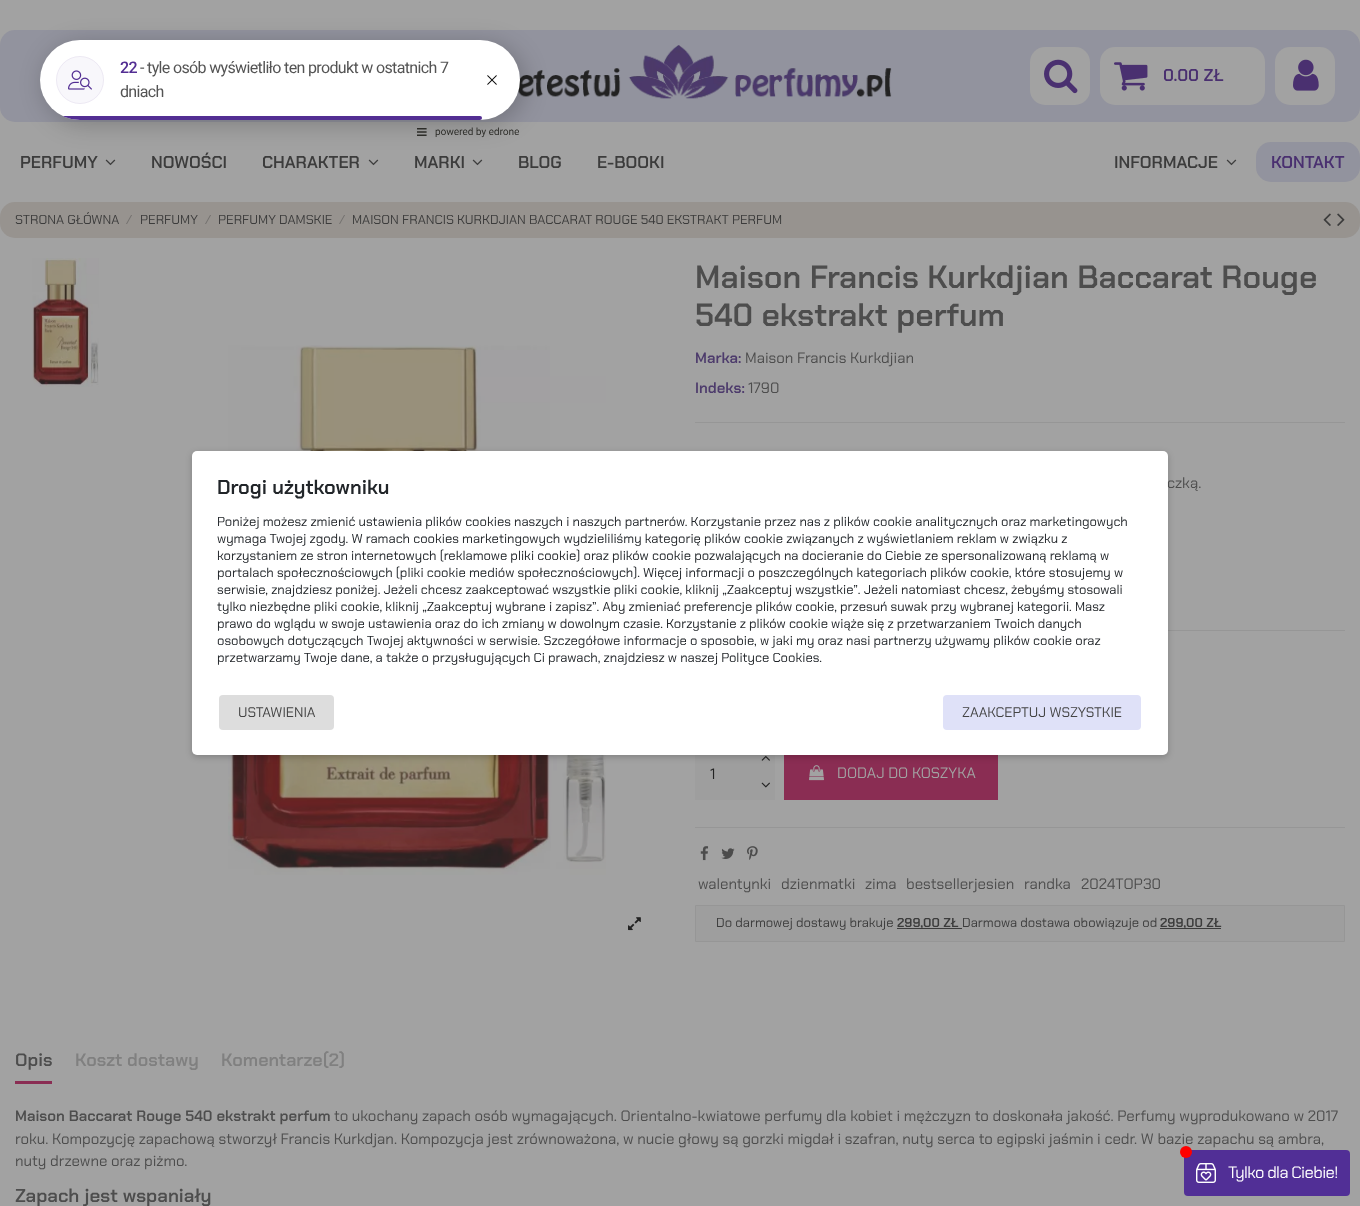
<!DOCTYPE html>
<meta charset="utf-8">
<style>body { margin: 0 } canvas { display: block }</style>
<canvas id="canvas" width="1360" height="1206"></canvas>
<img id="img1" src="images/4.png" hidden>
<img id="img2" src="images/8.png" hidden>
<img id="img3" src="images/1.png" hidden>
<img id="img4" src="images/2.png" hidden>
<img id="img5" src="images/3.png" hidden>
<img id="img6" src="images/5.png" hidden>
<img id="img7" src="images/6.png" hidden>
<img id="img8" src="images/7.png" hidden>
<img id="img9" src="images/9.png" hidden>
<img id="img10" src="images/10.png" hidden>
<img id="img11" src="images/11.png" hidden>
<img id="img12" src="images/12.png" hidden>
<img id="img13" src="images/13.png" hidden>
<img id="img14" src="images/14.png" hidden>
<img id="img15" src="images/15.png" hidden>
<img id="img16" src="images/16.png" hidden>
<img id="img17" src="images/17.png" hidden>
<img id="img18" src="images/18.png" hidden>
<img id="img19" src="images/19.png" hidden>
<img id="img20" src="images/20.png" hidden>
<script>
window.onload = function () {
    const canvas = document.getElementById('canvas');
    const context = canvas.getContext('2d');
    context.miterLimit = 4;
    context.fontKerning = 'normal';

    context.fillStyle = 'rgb(162, 162, 162)';
    context.fillRect(0, 0, 1360, 1206);
    context.fillStyle = 'rgb(146, 147, 158)';
    context.beginPath();
    context.roundRect(0, 30, 1360, 92, 15);
    context.fill();
    context.drawImage(document.getElementById('img1'), 518, 45, 374, 54);
    context.drawImage(document.getElementById('img2'), 105, 159, 11, 7);
    context.drawImage(document.getElementById('img2'), 368, 159, 11, 7);
    context.drawImage(document.getElementById('img2'), 472, 159, 11, 7);
    context.fillStyle = 'rgba(0, 0, 0, 0.22)';
    context.filter = 'blur(12px)';
    context.beginPath();
    context.roundRect(44, 44, 480, 80, 40);
    context.fill();
    context.filter = 'none';
    context.fillStyle = 'rgb(255, 255, 255)';
    context.beginPath();
    context.roundRect(40, 40, 480, 80, 40);
    context.fill();
    context.fillStyle = 'rgb(248, 247, 251)';
    context.beginPath();
    context.arc(80, 80, 24, 0, 2 * Math.PI);
    context.fill();
    context.beginPath();
    context.arc(80, 80, 23.5, 0, 2 * Math.PI);
    context.strokeStyle = 'rgba(83, 46, 147, 0.07)';
    context.stroke();
    context.drawImage(document.getElementById('img3'), 68, 70, 24, 20);
    context.drawImage(document.getElementById('img4'), 487, 75, 10, 10);
    context.save();
    context.beginPath();
    context.roundRect(40, 40, 480, 80, 40);
    context.clip();
    context.fillStyle = 'rgb(83, 46, 147)';
    context.beginPath();
    context.roundRect(40, 116, 442, 4, 2);
    context.fill();
    context.restore();
    context.drawImage(document.getElementById('img5'), 417, 127, 102, 11);
    context.fillStyle = 'rgb(162, 162, 162)';
    context.beginPath();
    context.roundRect(1030, 47, 60, 58, 15);
    context.fill();
    context.drawImage(document.getElementById('img6'), 1044, 59, 34, 35);
    context.beginPath();
    context.roundRect(1100, 47, 165, 58, 15);
    context.fill();
    context.drawImage(document.getElementById('img7'), 1114, 62, 34, 29);
    context.beginPath();
    context.roundRect(1275, 47, 60, 58, 15);
    context.fill();
    context.drawImage(document.getElementById('img8'), 1293, 59, 26, 32);
    context.drawImage(document.getElementById('img2'), 1226, 159, 11, 7);
    context.fillStyle = 'rgb(146, 147, 158)';
    context.beginPath();
    context.roundRect(1256, 142, 104, 40, 15);
    context.fill();
    context.fillStyle = 'rgb(151, 147, 143)';
    context.beginPath();
    context.roundRect(0, 202, 1360, 36, 15);
    context.fill();
    context.drawImage(document.getElementById('img9'), 1323, 213, 8, 13);
    context.drawImage(document.getElementById('img10'), 1337, 213, 8, 13);
    context.drawImage(document.getElementById('img11'), 32, 258, 67, 129);
    context.drawImage(document.getElementById('img12'), 228, 345, 378, 530);
    context.drawImage(document.getElementById('img13'), 628, 917, 13, 14);
    context.fillStyle = 'rgb(150, 150, 150)';
    context.fillRect(695, 422, 650, 1);
    context.fillRect(1168, 630, 177, 1);
    context.fillStyle = 'rgb(158, 158, 158)';
    context.fillRect(695, 755, 60, 45);
    context.fillRect(755, 755, 20, 45);
    context.drawImage(document.getElementById('img14'), 761, 755, 9, 6);
    context.drawImage(document.getElementById('img15'), 761, 782, 9, 6);
    context.fillStyle = 'rgb(138, 45, 83)';
    context.fillRect(784, 755, 214, 45);
    context.drawImage(document.getElementById('img16'), 809, 765, 15, 16);
    context.fillStyle = 'rgb(150, 150, 150)';
    context.fillRect(695, 827, 650, 1);
    context.drawImage(document.getElementById('img17'), 700, 846, 9, 15);
    context.drawImage(document.getElementById('img18'), 721, 848, 14, 11);
    context.drawImage(document.getElementById('img19'), 747, 846, 11, 14);
    context.fillStyle = 'rgb(158, 158, 158)';
    context.beginPath();
    context.rect(695.5, 905.5, 649, 36);
    context.fill();
    context.strokeStyle = 'rgb(150, 150, 150)';
    context.stroke();
    context.fillStyle = 'rgb(60, 60, 60)';
    context.fillRect(897, 928, 65, 1);
    context.fillRect(1160, 928, 61, 1);
    context.fillStyle = 'rgb(138, 45, 83)';
    context.fillRect(15, 1081, 37, 3);
    context.fillStyle = 'rgba(0, 0, 0, 0.2)';
    context.filter = 'blur(3px)';
    context.beginPath();
    context.roundRect(192, 453, 976, 304, 5);
    context.fill();
    context.filter = 'none';
    context.fillStyle = 'rgb(255, 255, 255)';
    context.beginPath();
    context.roundRect(192, 451, 976, 304, 5);
    context.fill();
    context.fillStyle = 'rgb(221, 221, 221)';
    context.beginPath();
    context.roundRect(219, 695, 115, 35, 4);
    context.fill();
    context.fillStyle = 'rgb(223, 225, 248)';
    context.beginPath();
    context.roundRect(943, 695, 198, 35, 4);
    context.fill();
    context.fillStyle = 'rgb(81, 47, 150)';
    context.beginPath();
    context.roundRect(1184, 1150, 166, 46, 4);
    context.fill();
    context.drawImage(document.getElementById('img20'), 1196, 1163, 20, 20);
    context.letterSpacing = '-0.65px';
    context.font = '500 16px Roboto';
    context.fillStyle = 'rgb(83, 46, 147)';
    context.fillText('22', 120, 73);
    context.font = '16px Roboto';
    context.fillStyle = 'rgb(84, 84, 84)';
    context.fillText('- tyle osób wyświetliło ten produkt w ostatnich 7', 140, 73);
    context.fillText('dniach', 120, 97);
    context.letterSpacing = '0px';
    context.font = '600 17px Chakra Petch';
    context.fillStyle = 'rgb(74, 48, 112)';
    context.fillText('0.00 ZŁ', 1163, 81);
    context.fillStyle = 'rgb(60, 60, 60)';
    context.fillText('PERFUMY', 20, 168);
    context.fillText('NOWOŚCI', 151, 168);
    context.fillText('CHARAKTER', 262, 168);
    context.fillText('MARKI', 414, 168);
    context.fillText('BLOG', 518, 168);
    context.fillText('E-BOOKI', 597, 168);
    context.fillText('INFORMACJE', 1114, 168);
    context.fillStyle = 'rgb(74, 48, 112)';
    context.fillText('KONTAKT', 1271, 168);
    context.font = '13px Chakra Petch';
    context.fillStyle = 'rgb(60, 60, 60)';
    context.fillText('STRONA GŁÓWNA', 15, 224);
    context.fillStyle = 'rgb(115, 112, 110)';
    context.fillText('/', 126, 224);
    context.fillStyle = 'rgb(60, 60, 60)';
    context.fillText('PERFUMY', 140, 224);
    context.fillStyle = 'rgb(115, 112, 110)';
    context.fillText('/', 205, 224);
    context.fillStyle = 'rgb(60, 60, 60)';
    context.fillText('PERFUMY DAMSKIE', 218, 224);
    context.fillStyle = 'rgb(115, 112, 110)';
    context.fillText('/', 339, 224);
    context.fillStyle = 'rgb(60, 60, 60)';
    context.fillText('MAISON FRANCIS KURKDJIAN BACCARAT ROUGE 540 EKSTRAKT PERFUM', 352, 224);
    context.font = '600 32px Chakra Petch';
    context.fillStyle = 'rgb(77, 77, 77)';
    context.fillText('Maison Francis Kurkdjian Baccarat Rouge', 695, 288);
    context.fillText('540 ekstrakt perfum', 695, 326);
    context.font = '600 15px Chakra Petch';
    context.fillStyle = 'rgb(77, 59, 108)';
    context.fillText('Marka:', 695, 363);
    context.font = '15px Chakra Petch';
    context.fillStyle = 'rgb(77, 77, 77)';
    context.fillText('Maison Francis Kurkdjian', 745, 363);
    context.font = '600 15px Chakra Petch';
    context.fillStyle = 'rgb(77, 59, 108)';
    context.fillText('Indeks:', 695, 393);
    context.font = '15px Chakra Petch';
    context.fillStyle = 'rgb(77, 77, 77)';
    context.fillText('1790', 748, 393);
    context.fillText('czką.', 1167, 488);
    context.fillStyle = 'rgb(34, 34, 34)';
    context.fillText('1', 710, 779);
    context.fillStyle = 'rgb(162, 162, 162)';
    context.fillText('DODAJ DO KOSZYKA', 837, 778);
    context.fillStyle = 'rgb(77, 77, 77)';
    context.fillText('walentynki', 698, 889);
    context.fillText('dzienmatki', 781, 889);
    context.fillText('zima', 865, 889);
    context.fillText('bestsellerjesien', 906, 889);
    context.fillText('randka', 1024, 889);
    context.fillText('2024TOP30', 1081, 889);
    context.font = '13px Chakra Petch';
    context.fillStyle = 'rgb(60, 60, 60)';
    context.fillText('Do darmowej dostawy brakuje', 716, 927);
    context.font = '600 13px Chakra Petch';
    context.fillText('299,00 ZŁ', 897, 927);
    context.font = '13px Chakra Petch';
    context.fillText('Darmowa dostawa obowiązuje od', 962, 927);
    context.font = '600 13px Chakra Petch';
    context.fillText('299,00 ZŁ', 1160, 927);
    context.font = '600 18px Chakra Petch';
    context.fillStyle = 'rgb(77, 77, 77)';
    context.fillText('Opis', 15, 1066);
    context.fillStyle = 'rgb(128, 128, 128)';
    context.fillText('Koszt dostawy', 75, 1066);
    context.fillText('Komentarze(2)', 221, 1066);
    context.font = '600 15px Chakra Petch';
    context.fillStyle = 'rgb(77, 77, 77)';
    context.fillText('Maison Baccarat Rouge 540 ekstrakt perfum', 15, 1121);
    context.font = '15px Chakra Petch';
    context.fillText('to ukochany zapach osób wymagających. Orientalno-kwiatowe perfumy dla kobiet i mężczyzn to doskonała jakość. Perfumy wyprodukowano w 2017', 334, 1121);
    context.fillText('roku. Kompozycję zapachową stworzył Francis Kurkdjan. Kompozycja jest zrównoważona, w nucie głowy są gorzki migdał i szafran, nuty serca to egipski jaśmin i cedr. W bazie zapachu są ambra,', 15, 1144);
    context.fillText('nuty drzewne oraz piżmo.', 15, 1166);
    context.font = '600 18.75px Chakra Petch';
    context.fillText('Zapach jest wspaniały', 15, 1202);
    context.font = '600 20px Chakra Petch';
    context.fillStyle = 'rgb(33, 37, 41)';
    context.fillText('Drogi użytkowniku', 217, 494);
    context.font = '13px Chakra Petch';
    context.fillText('Poniżej możesz zmienić ustawienia plików cookies naszych i naszych partnerów. Korzystanie przez nas z plików cookie analitycznych oraz marketingowych', 217, 526);
    context.fillText('wymaga Twojej zgody. W ramach cookies marketingowych wydzieliliśmy kategorię plików cookie związanych z wyświetlaniem reklam w związku z', 217, 543);
    context.fillText('korzystaniem ze stron internetowych (reklamowe pliki cookie) oraz plików cookie pozwalających na docieranie do Ciebie ze spersonalizowaną reklamą w', 217, 560);
    context.fillText('portalach społecznościowych (pliki cookie mediów społecznościowych). Więcej informacji o poszczególnych kategoriach plików cookie, które stosujemy w', 217, 577);
    context.fillText('serwisie, znajdziesz poniżej. Jeżeli chcesz zaakceptować wszystkie pliki cookie, kliknij „Zaakceptuj wszystkie”. Jeżeli natomiast chcesz, żebyśmy stosowali', 217, 594);
    context.fillText('tylko niezbędne pliki cookie, kliknij „Zaakceptuj wybrane i zapisz”. Aby zmieniać preferencje plików cookie, przesuń suwak przy wybranej kategorii. Masz', 217, 611);
    context.fillText('prawo do wglądu w swoje ustawienia oraz do ich zmiany w dowolnym czasie. Korzystanie z plików cookie wiąże się z przetwarzaniem Twoich danych', 217, 628);
    context.fillText('osobowych dotyczących Twojej aktywności w serwisie. Szczegółowe informacje o sposobie, w jaki my oraz nasi partnerzy używamy plików cookie oraz', 217, 645);
    context.fillText('przetwarzamy Twoje dane, a także o przysługujących Ci prawach, znajdziesz w naszej Polityce Cookies.', 217, 662);
    context.font = '14px Chakra Petch';
    context.fillStyle = 'rgb(68, 68, 68)';
    context.fillText('USTAWIENIA', 238, 717);
    context.fillText('ZAAKCEPTUJ WSZYSTKIE', 962, 717);
    context.fillStyle = 'rgb(255, 0, 0)';
    context.beginPath();
    context.arc(1186, 1152, 6, 0, 2 * Math.PI);
    context.fill();
    context.letterSpacing = '-0.6px';
    context.font = '16.5px Chakra Petch';
    context.fillStyle = 'rgb(255, 255, 255)';
    context.fillText('Tylko dla Ciebie!', 1228, 1178);
};
</script>
